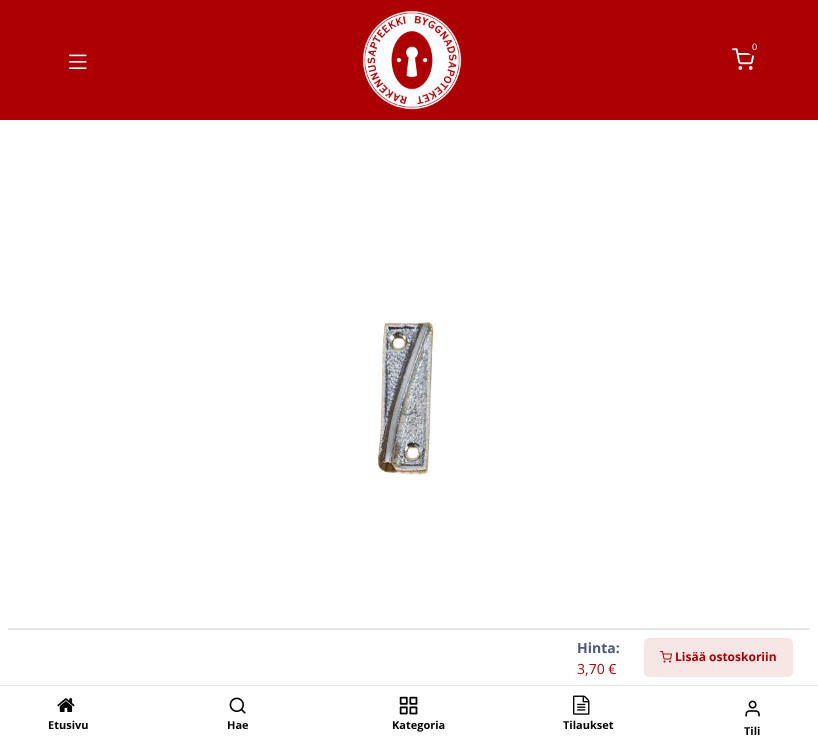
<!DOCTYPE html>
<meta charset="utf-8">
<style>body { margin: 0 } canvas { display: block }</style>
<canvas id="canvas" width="818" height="737"></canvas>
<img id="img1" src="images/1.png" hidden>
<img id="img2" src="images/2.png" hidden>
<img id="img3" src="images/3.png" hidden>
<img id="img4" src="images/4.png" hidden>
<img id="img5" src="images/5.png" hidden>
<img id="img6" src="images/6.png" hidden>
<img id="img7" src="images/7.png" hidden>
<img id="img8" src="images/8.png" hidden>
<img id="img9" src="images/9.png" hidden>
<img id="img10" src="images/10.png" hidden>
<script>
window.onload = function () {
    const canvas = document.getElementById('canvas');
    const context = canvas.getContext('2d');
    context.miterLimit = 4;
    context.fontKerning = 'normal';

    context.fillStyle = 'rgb(255, 255, 255)';
    context.fillRect(0, 0, 818, 737);
    context.fillStyle = 'rgb(172, 0, 5)';
    context.fillRect(0, 0, 818, 120);
    context.drawImage(document.getElementById('img1'), 362, 10, 100, 100);
    context.drawImage(document.getElementById('img2'), 732, 48, 23, 22);
    context.beginPath();
    context.arc(755, 47, 9, 0, 2 * Math.PI);
    context.fill();
    context.drawImage(document.getElementById('img3'), 69, 54, 18, 15);
    context.drawImage(document.getElementById('img4'), 377, 321, 57, 154);
    context.fillStyle = 'rgb(228, 230, 235)';
    context.fillRect(8, 628, 802, 2);
    context.fillRect(0, 685, 818, 1);
    context.fillStyle = 'rgb(247, 230, 230)';
    context.beginPath();
    context.roundRect(644, 638, 149, 39, 5);
    context.fill();
    context.drawImage(document.getElementById('img5'), 660, 651, 12, 12);
    context.drawImage(document.getElementById('img6'), 57, 698, 18, 14);
    context.drawImage(document.getElementById('img7'), 229, 697, 17, 17);
    context.drawImage(document.getElementById('img8'), 399, 696, 19, 19);
    context.drawImage(document.getElementById('img9'), 573, 695, 17, 20);
    context.drawImage(document.getElementById('img10'), 745, 700, 15, 17);
    context.font = '9px Open Sans';
    context.fillStyle = 'rgb(255, 255, 255)';
    context.fillText('0', 752, 50);
    context.font = 'bold 14px Open Sans';
    context.fillStyle = 'rgb(77, 91, 124)';
    context.fillText('Hinta:', 577, 653);
    context.font = '14px Open Sans';
    context.fillStyle = 'rgb(172, 0, 5)';
    context.fillText('3,70 €', 577, 674);
    context.font = 'bold 12px "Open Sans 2"';
    context.fillText('Lisää ostoskoriin', 675, 661);
    context.font = 'bold 11px Open Sans';
    context.fillStyle = 'rgb(0, 0, 0)';
    context.fillText('Etusivu', 48, 729);
    context.fillText('Hae', 227, 729);
    context.fillText('Kategoria', 392, 729);
    context.fillText('Tilaukset', 563, 729);
    context.fillText('Tili', 744, 735);
};
</script>
